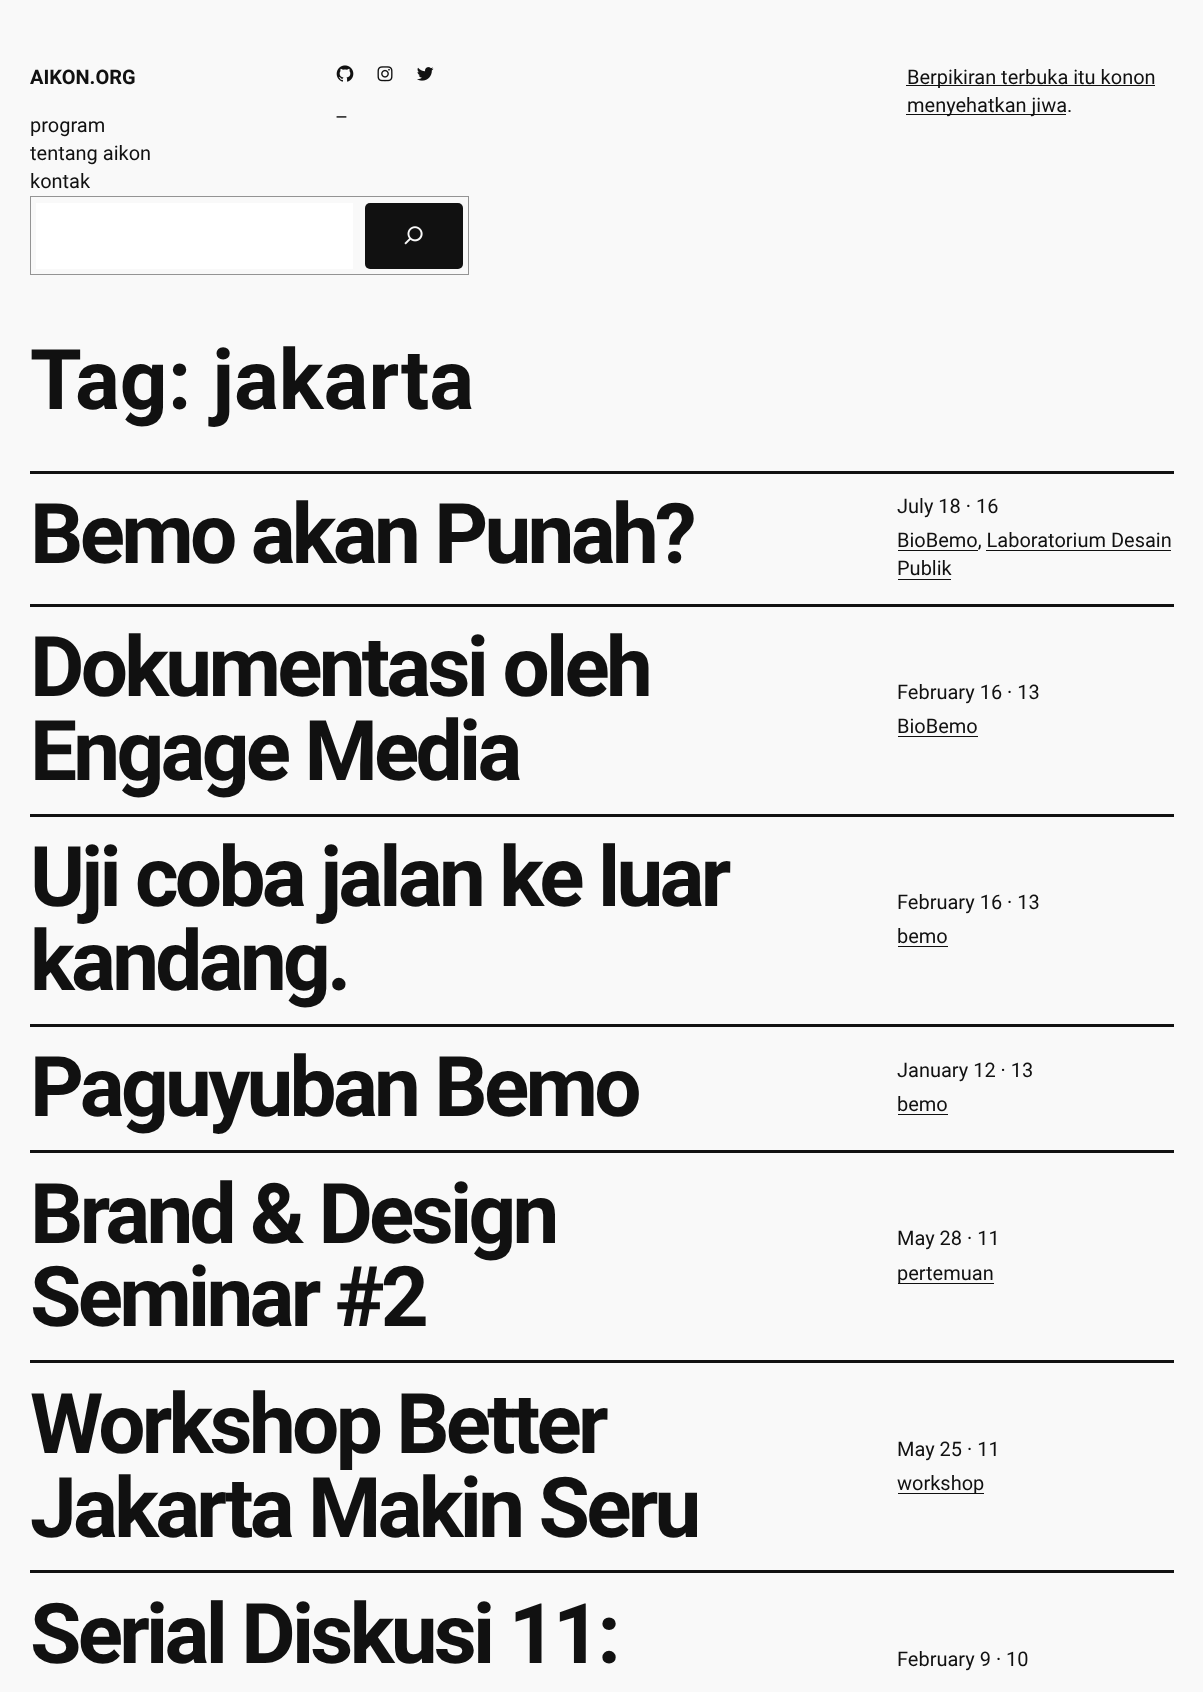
<!DOCTYPE html>
<meta charset="utf-8">
<style>body { margin: 0 } canvas { display: block }</style>
<canvas id="canvas" width="1203" height="1692"></canvas>
<img id="img1" src="images/1.png" hidden>
<img id="img2" src="images/2.png" hidden>
<img id="img3" src="images/3.png" hidden>
<img id="img4" src="images/4.png" hidden>
<script>
window.onload = function () {
    const canvas = document.getElementById('canvas');
    const context = canvas.getContext('2d');
    context.miterLimit = 4;
    context.fontKerning = 'normal';

    context.fillStyle = 'rgb(249, 249, 249)';
    context.fillRect(0, 0, 1203, 1692);
    context.strokeStyle = 'rgb(148, 148, 148)';
    context.strokeRect(30.5, 196.5, 438, 78);
    context.fillStyle = 'rgb(255, 255, 255)';
    context.fillRect(36, 203, 317, 66);
    context.fillStyle = 'rgb(17, 17, 17)';
    context.beginPath();
    context.roundRect(365, 203, 98, 66, 5);
    context.fill();
    context.drawImage(document.getElementById('img1'), 404, 226, 19, 19);
    context.drawImage(document.getElementById('img2'), 336, 65, 18, 17);
    context.drawImage(document.getElementById('img3'), 377, 66, 16, 16);
    context.drawImage(document.getElementById('img4'), 417, 67, 17, 14);
    context.fillRect(906, 85, 249, 1);
    context.fillRect(906, 114, 160, 1);
    context.fillRect(30, 471, 1144, 3);
    context.fillRect(898, 550, 80, 1);
    context.fillRect(986, 550, 185, 1);
    context.fillRect(898, 579, 53, 1);
    context.fillRect(30, 604, 1144, 3);
    context.fillRect(898, 736, 80, 1);
    context.fillRect(30, 814, 1144, 3);
    context.fillRect(898, 946, 50, 1);
    context.fillRect(30, 1024, 1144, 3);
    context.fillRect(898, 1114, 50, 1);
    context.fillRect(30, 1150, 1144, 3);
    context.fillRect(898, 1283, 96, 1);
    context.fillRect(30, 1360, 1144, 3);
    context.fillRect(898, 1493, 86, 1);
    context.fillRect(30, 1570, 1144, 3);
    context.font = 'bold 20px Roboto';
    context.fillText('AIKON.ORG', 30, 84);
    context.font = '20px Roboto';
    context.fillText('program', 30, 132);
    context.fillText('tentang aikon', 30, 160);
    context.fillText('kontak', 30, 188);
    context.fillText('–', 335, 124);
    context.fillText('Berpikiran terbuka itu konon', 907, 84);
    context.fillText('menyehatkan jiwa.', 907, 112);
    context.font = 'bold 83.75px Roboto';
    context.fillText('Tag: jakarta', 30, 409);
    context.letterSpacing = '-3.75px';
    context.fillText('Bemo akan Punah?', 30, 563);
    context.letterSpacing = '0px';
    context.font = '20px Roboto';
    context.fillText('July 18 · 16', 897, 513);
    context.fillText('BioBemo, Laboratorium Desain', 897, 547);
    context.fillText('Publik', 897, 575);
    context.letterSpacing = '-3.75px';
    context.font = 'bold 83.75px Roboto';
    context.fillText('Dokumentasi oleh', 30, 696);
    context.fillText('Engage Media', 30, 780);
    context.letterSpacing = '0px';
    context.font = '20px Roboto';
    context.fillText('February 16 · 13', 897, 699);
    context.fillText('BioBemo', 897, 733);
    context.letterSpacing = '-3.75px';
    context.font = 'bold 83.75px Roboto';
    context.fillText('Uji coba jalan ke luar', 30, 906);
    context.fillText('kandang.', 30, 990);
    context.letterSpacing = '0px';
    context.font = '20px Roboto';
    context.fillText('February 16 · 13', 897, 909);
    context.fillText('bemo', 897, 943);
    context.letterSpacing = '-3.75px';
    context.font = 'bold 83.75px Roboto';
    context.fillText('Paguyuban Bemo', 30, 1116);
    context.letterSpacing = '0px';
    context.font = '20px Roboto';
    context.fillText('January 12 · 13', 897, 1077);
    context.fillText('bemo', 897, 1111);
    context.letterSpacing = '-3.75px';
    context.font = 'bold 83.75px Roboto';
    context.fillText('Brand & Design', 30, 1243);
    context.fillText('Seminar #2', 30, 1326);
    context.letterSpacing = '0px';
    context.font = '20px Roboto';
    context.fillText('May 28 · 11', 897, 1245);
    context.fillText('pertemuan', 897, 1280);
    context.letterSpacing = '-3.75px';
    context.font = 'bold 83.75px Roboto';
    context.fillText('Workshop Better', 30, 1453);
    context.fillText('Jakarta Makin Seru', 30, 1537);
    context.letterSpacing = '0px';
    context.font = '20px Roboto';
    context.fillText('May 25 · 11', 897, 1456);
    context.fillText('workshop', 897, 1490);
    context.letterSpacing = '-3.75px';
    context.font = 'bold 83.75px Roboto';
    context.fillText('Serial Diskusi 11:', 30, 1663);
    context.letterSpacing = '0px';
    context.font = '20px Roboto';
    context.fillText('February 9 · 10', 897, 1666);
};
</script>
